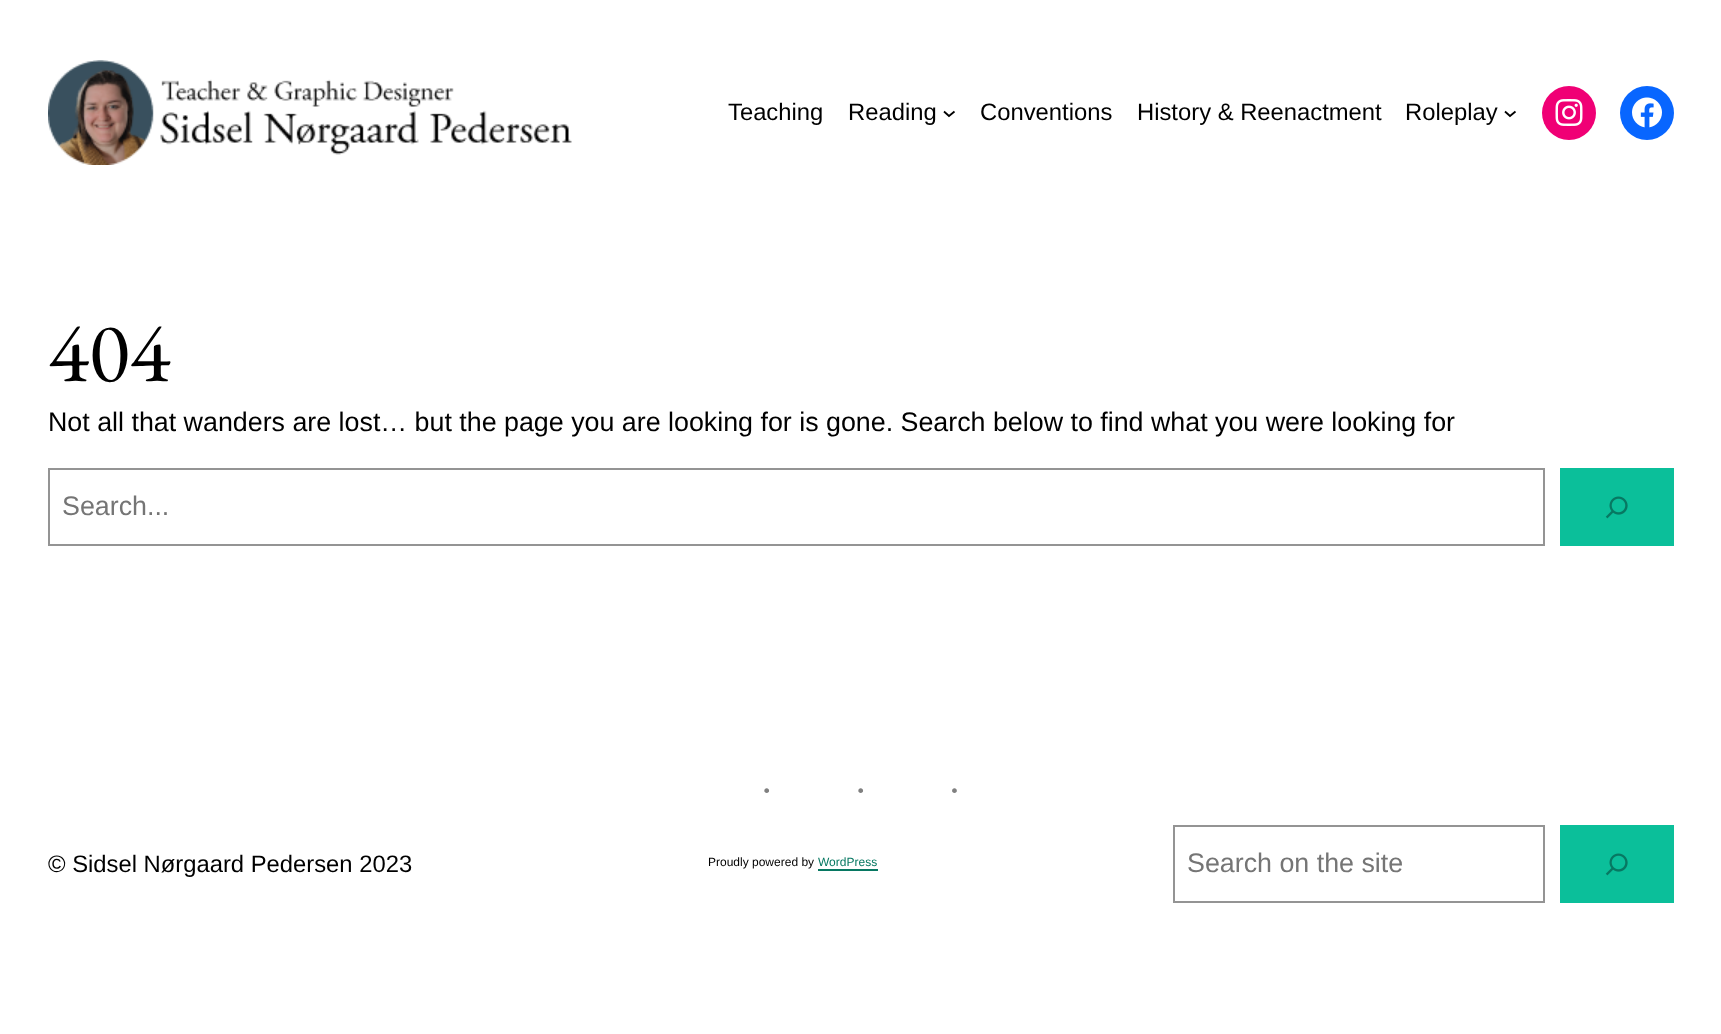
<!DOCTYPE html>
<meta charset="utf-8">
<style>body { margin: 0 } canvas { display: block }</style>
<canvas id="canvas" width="1721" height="1034"></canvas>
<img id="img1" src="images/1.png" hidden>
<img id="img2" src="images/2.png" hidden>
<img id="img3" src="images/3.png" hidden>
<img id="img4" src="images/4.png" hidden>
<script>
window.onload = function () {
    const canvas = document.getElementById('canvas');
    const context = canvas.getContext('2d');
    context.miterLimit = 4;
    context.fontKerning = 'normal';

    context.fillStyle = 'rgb(255, 255, 255)';
    context.fillRect(0, 0, 1721, 1034);
    context.drawImage(document.getElementById('img1'), 48, 60, 524, 105);
    context.beginPath();
    context.moveTo(944, 111.5);
    context.lineTo(949, 116);
    context.lineTo(954.5, 111.5);
    context.strokeStyle = 'rgb(0, 0, 0)';
    context.lineWidth = 1.8;
    context.stroke();
    context.beginPath();
    context.moveTo(1505, 111.5);
    context.lineTo(1510, 116);
    context.lineTo(1515.5, 111.5);
    context.stroke();
    context.fillStyle = 'rgb(240, 0, 117)';
    context.beginPath();
    context.arc(1569, 113, 27, 0, 2 * Math.PI);
    context.fill();
    context.drawImage(document.getElementById('img2'), 1555, 99, 28, 27);
    context.fillStyle = 'rgb(8, 102, 255)';
    context.beginPath();
    context.arc(1647, 113, 27, 0, 2 * Math.PI);
    context.fill();
    context.drawImage(document.getElementById('img3'), 1632, 97, 30, 31);
    context.strokeStyle = 'rgb(148, 148, 148)';
    context.lineWidth = 2;
    context.strokeRect(49, 469, 1495, 76);
    context.fillStyle = 'rgb(11, 191, 154)';
    context.fillRect(1560, 468, 114, 78);
    context.drawImage(document.getElementById('img4'), 1605, 496, 23, 23);
    context.fillStyle = 'rgb(7, 120, 98)';
    context.fillRect(818, 869, 60, 2);
    context.strokeRect(1174, 826, 370, 76);
    context.fillStyle = 'rgb(11, 191, 154)';
    context.fillRect(1560, 825, 114, 78);
    context.drawImage(document.getElementById('img4'), 1605, 853, 23, 23);
    context.font = '23.8px Liberation Sans';
    context.fillStyle = 'rgb(0, 0, 0)';
    context.fillText('Teaching', 728, 120);
    context.fillText('Reading', 848, 120);
    context.fillText('Conventions', 980, 120);
    context.fillText('History & Reenactment', 1137, 120);
    context.fillText('Roleplay', 1405, 120);
    context.font = '85px EB Garamond';
    context.fillText('404', 48, 381);
    context.font = '26.82px Liberation Sans';
    context.fillText('Not all that wanders are lost… but the page you are looking for is gone. Search below to find what you were looking for', 48, 431);
    context.fillStyle = 'rgb(117, 117, 117)';
    context.fillText('Search...', 62, 515);
    context.letterSpacing = '80.5px';
    context.font = '40.25px Liberation Serif';
    context.fillStyle = 'rgb(128, 128, 128)';
    context.fillText('···', 760, 804);
    context.letterSpacing = '0px';
    context.font = '23.8px Liberation Sans';
    context.fillStyle = 'rgb(0, 0, 0)';
    context.fillText('© Sidsel Nørgaard Pedersen 2023', 48, 872);
    context.font = '12px Liberation Sans';
    context.fillText('Proudly powered by', 708, 866);
    context.fillStyle = 'rgb(7, 120, 98)';
    context.fillText('WordPress', 818, 866);
    context.font = '26.82px Liberation Sans';
    context.fillStyle = 'rgb(117, 117, 117)';
    context.fillText('Search on the site', 1187, 872);
};
</script>
